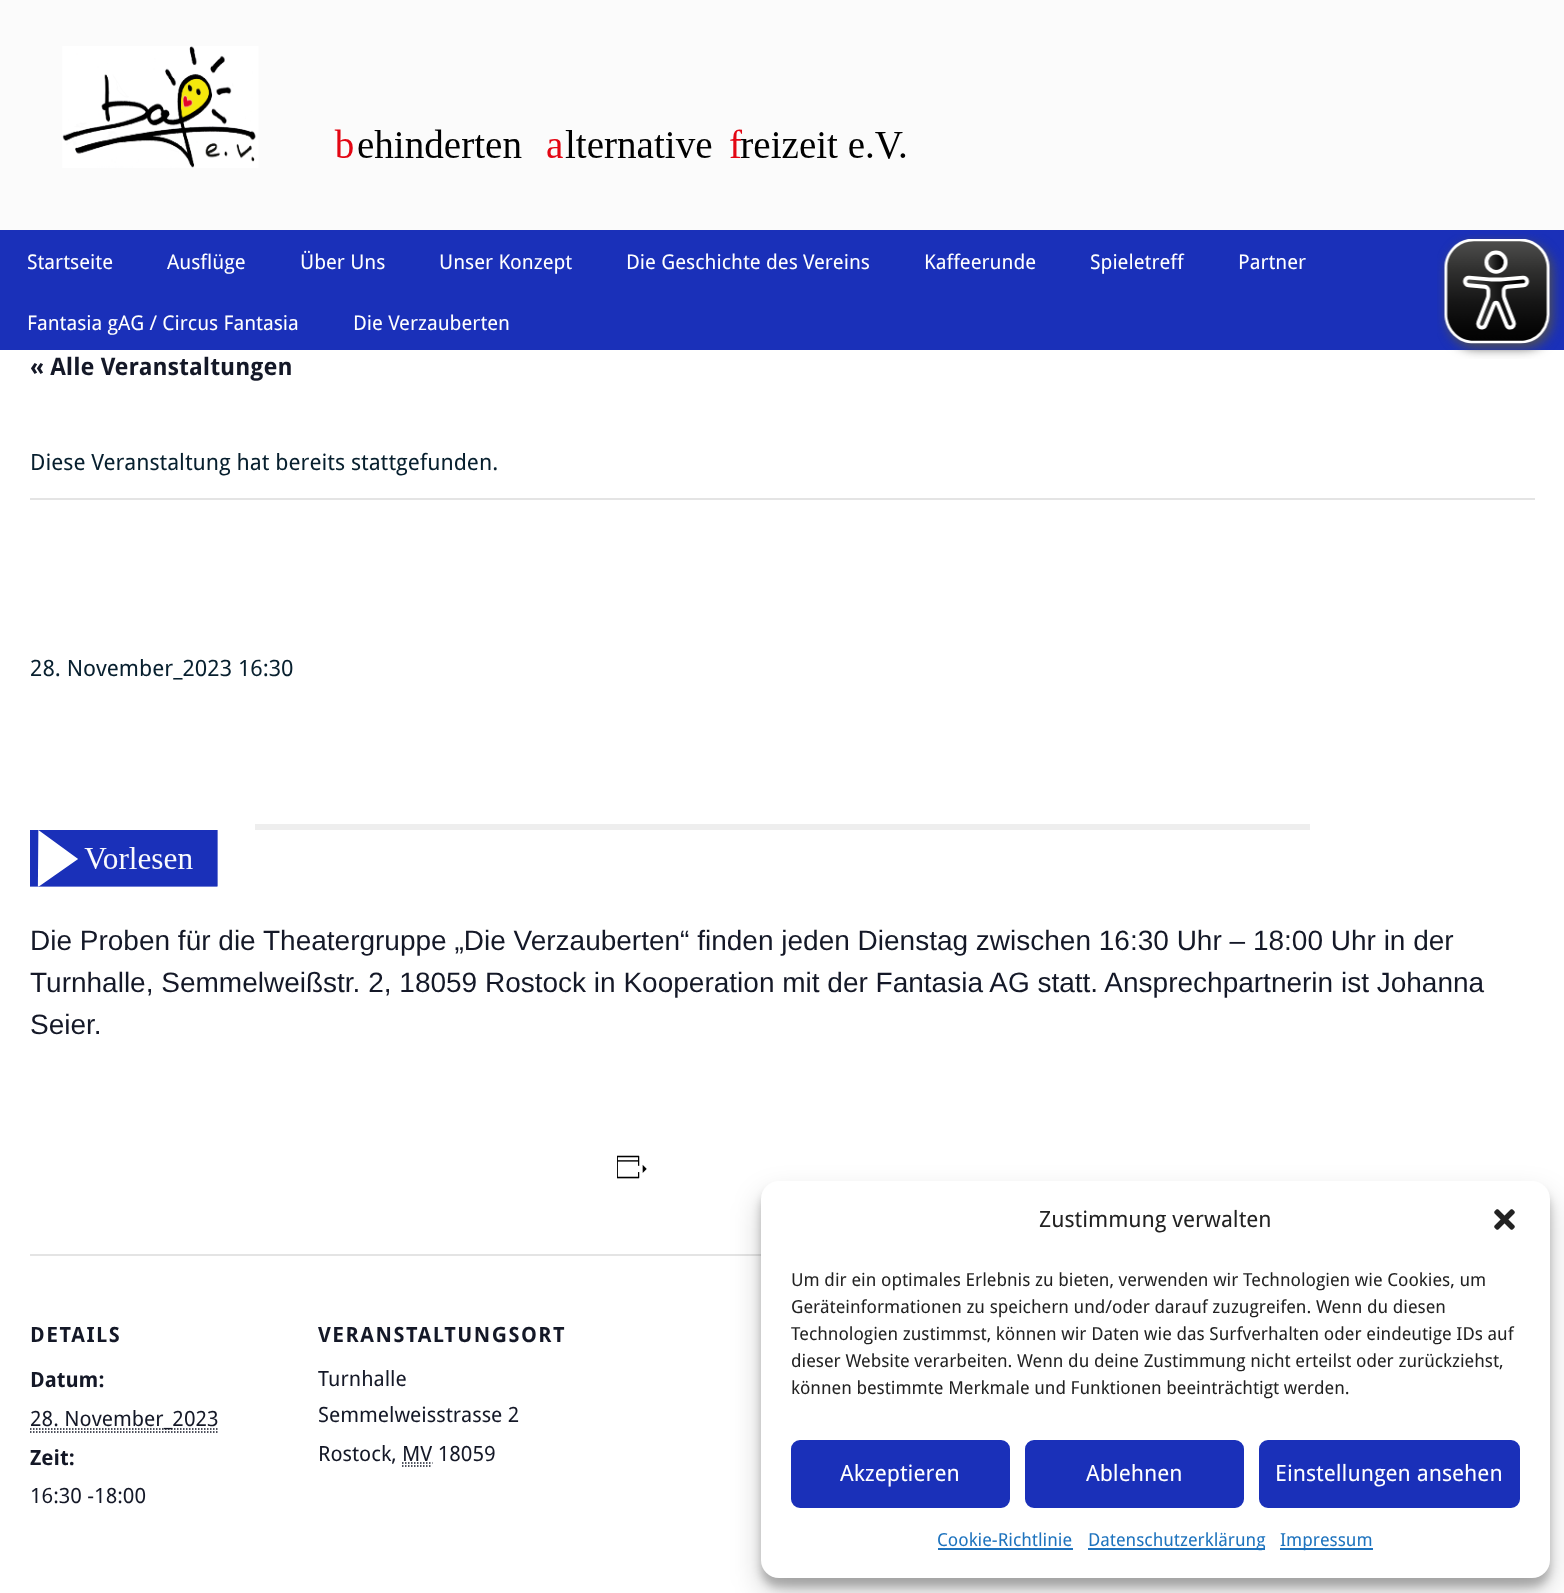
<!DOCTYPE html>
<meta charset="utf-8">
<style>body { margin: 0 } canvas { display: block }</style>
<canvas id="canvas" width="1564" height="1593"></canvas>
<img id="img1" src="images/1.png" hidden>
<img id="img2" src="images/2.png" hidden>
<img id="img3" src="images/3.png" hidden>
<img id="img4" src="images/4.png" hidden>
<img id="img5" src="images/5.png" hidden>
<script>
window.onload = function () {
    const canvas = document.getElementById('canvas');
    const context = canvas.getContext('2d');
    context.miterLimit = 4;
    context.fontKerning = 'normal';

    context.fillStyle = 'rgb(251, 251, 251)';
    context.fillRect(0, 0, 1564, 1593);
    context.drawImage(document.getElementById('img1'), 62, 46, 844, 122);
    context.fillStyle = 'rgb(26, 48, 185)';
    context.fillRect(0, 230, 1564, 120);
    context.fillStyle = 'rgb(255, 255, 255)';
    context.fillRect(0, 350, 1564, 1243);
    context.drawImage(document.getElementById('img2'), 1437, 234, 126, 125);
    context.fillStyle = 'rgb(228, 228, 228)';
    context.fillRect(30, 498, 1505, 2);
    context.fillStyle = 'rgb(238, 238, 238)';
    context.fillRect(255, 824, 1055, 6);
    context.drawImage(document.getElementById('img3'), 30, 830, 188, 57);
    context.drawImage(document.getElementById('img4'), 617, 1155, 30, 24);
    context.fillStyle = 'rgb(228, 228, 228)';
    context.fillRect(30, 1254, 731, 2);
    context.beginPath();
    context.moveTo(30, 1432);
    context.lineTo(219, 1432);
    context.strokeStyle = 'rgb(20, 24, 39)';
    context.lineWidth = 1.5;
    context.setLineDash([1.5, 1.5]);
    context.stroke();
    context.beginPath();
    context.moveTo(30, 1429);
    context.lineTo(218.5, 1429);
    context.stroke();
    context.beginPath();
    context.moveTo(402, 1466);
    context.lineTo(432, 1466);
    context.moveTo(402, 1463);
    context.lineTo(432.5, 1463);
    context.stroke();
    context.fillStyle = 'rgba(0, 0, 0, 0.23)';
    context.filter = 'blur(4.5px)';
    context.beginPath();
    context.roundRect(761, 1190, 789, 397, 18);
    context.fill();
    context.filter = 'none';
    context.fillStyle = 'rgba(0, 0, 0, 0.19)';
    context.filter = 'blur(15px)';
    context.beginPath();
    context.roundRect(761, 1196, 789, 397, 18);
    context.fill();
    context.filter = 'none';
    context.fillStyle = 'rgb(255, 255, 255)';
    context.beginPath();
    context.roundRect(761, 1181, 789, 397, 18);
    context.fill();
    context.drawImage(document.getElementById('img5'), 1494, 1209, 21, 21);
    context.fillStyle = 'rgb(26, 48, 185)';
    context.beginPath();
    context.roundRect(792, 1441, 217, 66, 8);
    context.fill();
    context.strokeStyle = 'rgb(26, 48, 185)';
    context.lineWidth = 2;
    context.setLineDash([]);
    context.stroke();
    context.beginPath();
    context.roundRect(1026, 1441, 217, 66, 8);
    context.fill();
    context.stroke();
    context.beginPath();
    context.roundRect(1260, 1441, 259, 66, 8);
    context.fill();
    context.stroke();
    context.fillStyle = 'rgb(30, 115, 190)';
    context.fillRect(938, 1548, 135, 2);
    context.fillRect(1088, 1548, 177, 2);
    context.fillRect(1280, 1548, 93, 2);
    context.font = '20.25px Droid Sans';
    context.fillStyle = 'rgb(255, 255, 255)';
    context.fillText('Startseite', 27, 269);
    context.fillText('Ausflüge', 167, 269);
    context.fillText('Über Uns', 300, 269);
    context.fillText('Unser Konzept', 439, 269);
    context.fillText('Die Geschichte des Vereins', 626, 269);
    context.fillText('Kaffeerunde', 924, 269);
    context.fillText('Spieletreff', 1090, 269);
    context.fillText('Partner', 1238, 269);
    context.fillText('Fantasia gAG / Circus Fantasia', 27, 330);
    context.fillText('Die Verzauberten', 353, 330);
    context.font = 'bold 24px Droid Sans';
    context.fillStyle = 'rgb(20, 24, 39)';
    context.fillText('« Alle Veranstaltungen', 30, 375);
    context.font = '22.5px Droid Sans';
    context.fillStyle = 'rgb(7, 31, 46)';
    context.fillText('Diese Veranstaltung hat bereits stattgefunden.', 30, 470);
    context.fillText('28. November_2023 16:30', 30, 676);
    context.font = '28px Liberation Sans';
    context.fillStyle = 'rgb(20, 24, 39)';
    context.fillText('Die Proben für die Theatergruppe „Die Verzauberten“ finden jeden Dienstag zwischen 16:30 Uhr – 18:00 Uhr in der', 30, 950);
    context.fillText('Turnhalle, Semmelweißstr. 2, 18059 Rostock in Kooperation mit der Fantasia AG statt. Ansprechpartnerin ist Johanna', 30, 992);
    context.fillText('Seier.', 30, 1034);
    context.letterSpacing = '1.5px';
    context.font = 'bold 21px Droid Sans';
    context.fillText('DETAILS', 30, 1342);
    context.letterSpacing = '0px';
    context.fillText('Datum:', 30, 1387);
    context.font = '21px Droid Sans';
    context.fillText('28. November_2023', 30, 1426);
    context.font = 'bold 21px Droid Sans';
    context.fillText('Zeit:', 30, 1465);
    context.font = '21px Droid Sans';
    context.fillText('16:30 -18:00', 30, 1503);
    context.letterSpacing = '1.5px';
    context.font = 'bold 21px Droid Sans';
    context.fillText('VERANSTALTUNGSORT', 318, 1342);
    context.letterSpacing = '0px';
    context.font = '21px Droid Sans';
    context.fillText('Turnhalle', 318, 1386);
    context.fillText('Semmelweisstrasse 2', 318, 1422);
    context.fillText('Rostock, MV 18059', 318, 1461);
    context.font = '22.5px Droid Sans';
    context.fillStyle = 'rgb(34, 34, 34)';
    context.fillText('Zustimmung verwalten', 1039, 1227);
    context.font = '18px Droid Sans';
    context.fillText('Um dir ein optimales Erlebnis zu bieten, verwenden wir Technologien wie Cookies, um', 791, 1286);
    context.fillText('Geräteinformationen zu speichern und/oder darauf zuzugreifen. Wenn du diesen', 791, 1313);
    context.fillText('Technologien zustimmst, können wir Daten wie das Surfverhalten oder eindeutige IDs auf', 791, 1340);
    context.fillText('dieser Website verarbeiten. Wenn du deine Zustimmung nicht erteilst oder zurückziehst,', 791, 1367);
    context.fillText('können bestimmte Merkmale und Funktionen beeinträchtigt werden.', 791, 1394);
    context.font = '22.5px Droid Sans';
    context.fillStyle = 'rgb(255, 255, 255)';
    context.fillText('Akzeptieren', 840, 1481);
    context.fillText('Ablehnen', 1086, 1481);
    context.fillText('Einstellungen ansehen', 1275, 1481);
    context.font = '18px Droid Sans';
    context.fillStyle = 'rgb(30, 115, 190)';
    context.fillText('Cookie-Richtlinie', 937, 1546);
    context.fillText('Datenschutzerklärung', 1088, 1546);
    context.fillText('Impressum', 1280, 1546);
};
</script>
